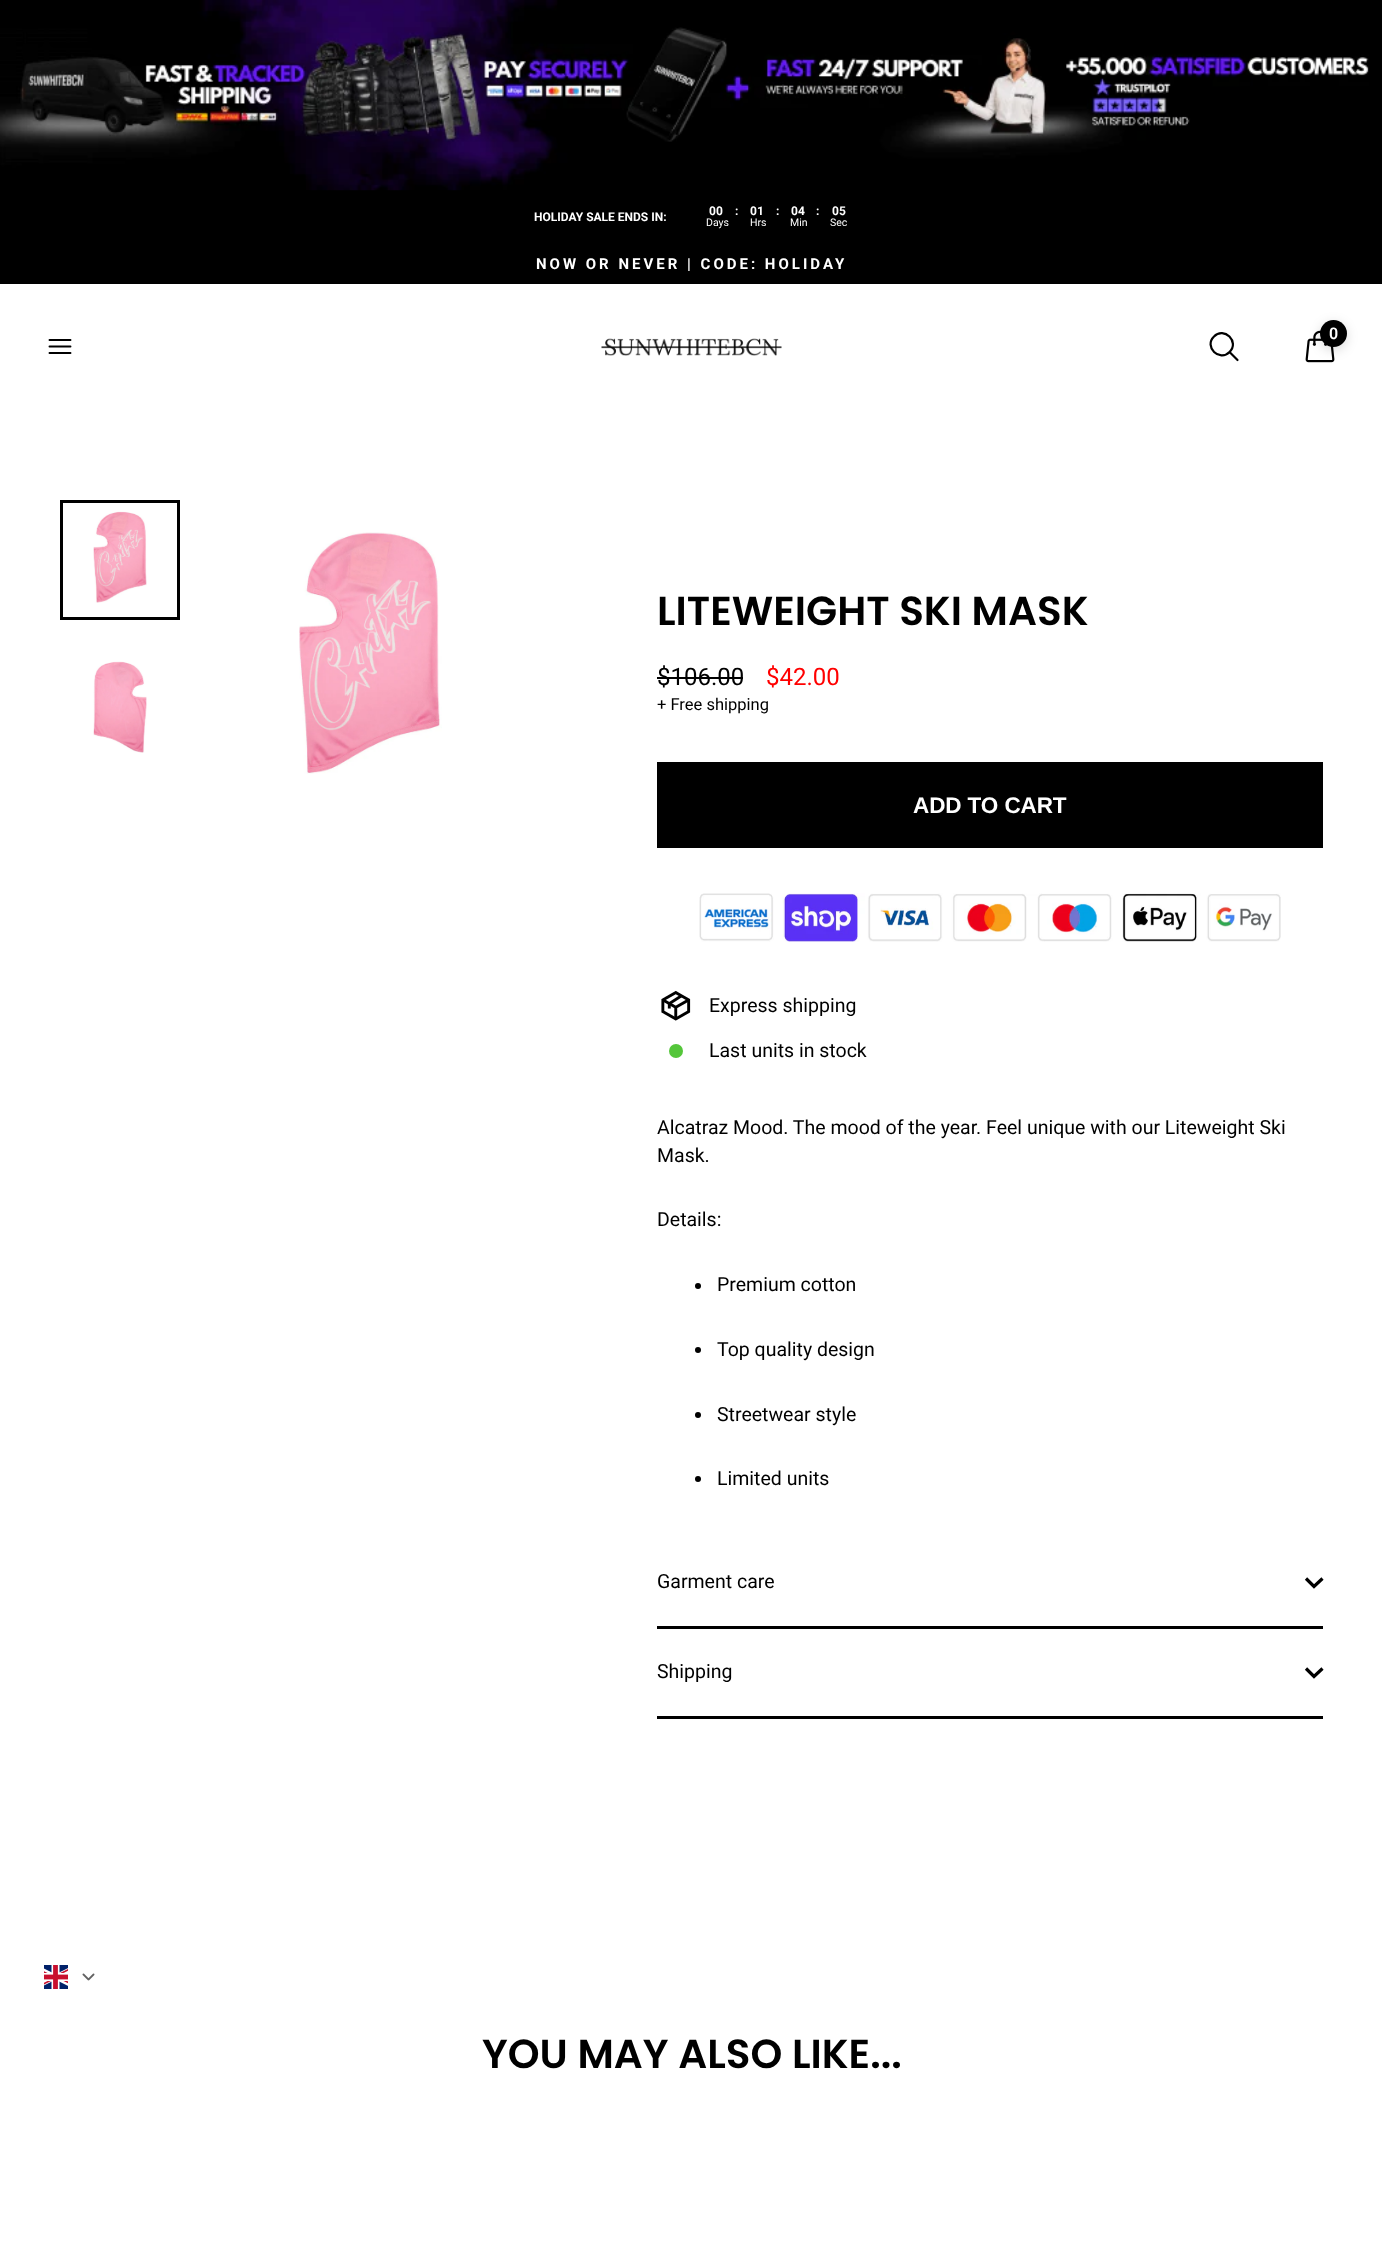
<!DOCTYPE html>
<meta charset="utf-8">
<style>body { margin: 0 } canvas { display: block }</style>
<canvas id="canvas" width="1382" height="2241"></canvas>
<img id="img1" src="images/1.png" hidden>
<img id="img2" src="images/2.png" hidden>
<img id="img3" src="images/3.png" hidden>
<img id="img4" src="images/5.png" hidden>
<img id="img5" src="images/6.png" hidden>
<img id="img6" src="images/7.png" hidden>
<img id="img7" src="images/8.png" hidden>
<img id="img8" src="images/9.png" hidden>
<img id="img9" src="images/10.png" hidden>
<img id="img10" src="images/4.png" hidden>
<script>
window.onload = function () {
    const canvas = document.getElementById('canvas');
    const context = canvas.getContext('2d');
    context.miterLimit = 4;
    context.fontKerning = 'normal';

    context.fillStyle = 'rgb(255, 255, 255)';
    context.fillRect(0, 0, 1382, 2241);
    context.drawImage(document.getElementById('img1'), 44, 1965, 24, 24);
    context.drawImage(document.getElementById('img2'), 82, 1973, 13, 8);
    context.fillStyle = 'rgb(0, 0, 0)';
    context.fillRect(0, 0, 1382, 191);
    context.drawImage(document.getElementById('img3'), 0, 0, 1369, 191);
    context.fillRect(0, 191, 1382, 93);
    context.beginPath();
    context.moveTo(1237.5, 360);
    context.lineTo(1229.5, 352);
    context.moveTo(1229.5, 352);
    context.bezierCurveTo(1240, 342, 1224, 326, 1214, 336.5);
    context.bezierCurveTo(1203.5, 346.5, 1219.5, 362.5, 1229.5, 352);
    context.closePath();
    context.strokeStyle = 'rgb(0, 0, 0)';
    context.lineWidth = 2.2;
    context.lineCap = 'round';
    context.lineJoin = 'round';
    context.stroke();
    context.fillStyle = 'rgba(0, 0, 0, 0.15)';
    context.filter = 'blur(6px)';
    context.beginPath();
    context.roundRect(1320, 323, 27, 27, 13.5);
    context.fill();
    context.filter = 'none';
    context.fillStyle = 'rgb(0, 0, 0)';
    context.beginPath();
    context.arc(1333.5, 333.5, 13.5, 0, 2 * Math.PI);
    context.fill();
    context.beginPath();
    context.moveTo(49.5, 340);
    context.lineTo(70.5, 340);
    context.moveTo(49.5, 346.5);
    context.lineTo(70.5, 346.5);
    context.moveTo(49.5, 353);
    context.lineTo(70.5, 353);
    context.lineWidth = 1.9;
    context.stroke();
    context.drawImage(document.getElementById('img4'), 601, 338, 181, 18);
    context.drawImage(document.getElementById('img5'), 93, 511, 54, 92);
    context.lineWidth = 3;
    context.lineJoin = 'miter';
    context.strokeRect(61.5, 501.5, 117, 117);
    context.drawImage(document.getElementById('img6'), 93, 661, 54, 92);
    context.drawImage(document.getElementById('img7'), 299, 532, 143, 242);
    context.fillRect(657, 677, 86, 2);
    context.fillRect(657, 762, 666, 86);
    context.drawImage(document.getElementById('img8'), 699, 893, 582, 49);
    context.drawImage(document.getElementById('img9'), 661, 990, 30, 31);
    context.fillStyle = 'rgb(84, 198, 58)';
    context.beginPath();
    context.arc(676, 1051, 7, 0, 2 * Math.PI);
    context.fill();
    context.fillStyle = 'rgb(0, 0, 0)';
    context.beginPath();
    context.arc(698, 1286, 3, 0, 2 * Math.PI);
    context.fill();
    context.beginPath();
    context.arc(698, 1350, 3, 0, 2 * Math.PI);
    context.fill();
    context.beginPath();
    context.arc(698, 1415, 3, 0, 2 * Math.PI);
    context.fill();
    context.beginPath();
    context.arc(698, 1479, 3, 0, 2 * Math.PI);
    context.fill();
    context.fillRect(657, 1626, 666, 3);
    context.beginPath();
    context.moveTo(1306, 1578.5);
    context.lineTo(1314, 1586.5);
    context.lineTo(1322.5, 1578.5);
    context.lineWidth = 3.2;
    context.lineCap = 'butt';
    context.stroke();
    context.fillRect(657, 1716, 666, 3);
    context.beginPath();
    context.moveTo(1306, 1668.5);
    context.lineTo(1314, 1676.5);
    context.lineTo(1322.5, 1668.5);
    context.stroke();
    context.font = 'bold 12px Roboto';
    context.fillStyle = 'rgb(255, 255, 255)';
    context.fillText('HOLIDAY SALE ENDS IN:', 534, 221);
    context.fillText('00', 709, 215);
    context.fillText(':', 735, 215);
    context.fillText('01', 750, 215);
    context.fillText(':', 776, 215);
    context.fillText('04', 791, 215);
    context.fillText(':', 816, 215);
    context.fillText('05', 832, 215);
    context.font = '10.5px Roboto';
    context.fillText('Days', 706, 226);
    context.fillText('Hrs', 750, 226);
    context.fillText('Min', 790, 226);
    context.fillText('Sec', 830, 226);
    context.letterSpacing = '3px';
    context.font = 'bold 15px Roboto';
    context.fillText('NOW OR NEVER | CODE: HOLIDAY', 536, 269);
    context.letterSpacing = '0px';
    context.font = '600 16px Roboto';
    context.fillText('0', 1329, 339);
    context.drawImage(document.getElementById('img10'), 1305, 330, 30, 33);
    context.font = '600 40.5px Poppins';
    context.fillStyle = 'rgb(0, 0, 0)';
    context.fillText('LITEWEIGHT SKI MASK', 657, 625);
    context.font = '24px Roboto';
    context.fillText('$106.00', 657, 685);
    context.fillStyle = 'rgb(255, 0, 0)';
    context.fillText('$42.00', 766, 685);
    context.font = '16.5px Roboto';
    context.fillStyle = 'rgb(0, 0, 0)';
    context.fillText('+ Free shipping', 657, 710);
    context.letterSpacing = '-0.1px';
    context.font = 'bold 22.5px Liberation Sans';
    context.fillStyle = 'rgb(255, 255, 255)';
    context.fillText('ADD TO CART', 913, 813);
    context.letterSpacing = '0px';
    context.font = '19.5px Roboto';
    context.fillStyle = 'rgb(0, 0, 0)';
    context.fillText('Express shipping', 709, 1012);
    context.fillText('Last units in stock', 709, 1057);
    context.fillText('Alcatraz Mood. The mood of the year. Feel unique with our Liteweight Ski', 657, 1134);
    context.fillText('Mask.', 657, 1162);
    context.fillText('Details:', 657, 1226);
    context.fillText('Premium cotton', 717, 1291);
    context.fillText('Top quality design', 717, 1356);
    context.fillText('Streetwear style', 717, 1421);
    context.fillText('Limited units', 717, 1485);
    context.fillText('Garment care', 657, 1588);
    context.fillText('Shipping', 657, 1678);
    context.font = '600 40.5px Poppins';
    context.fillText('YOU MAY ALSO LIKE...', 482, 2068);
};
</script>
